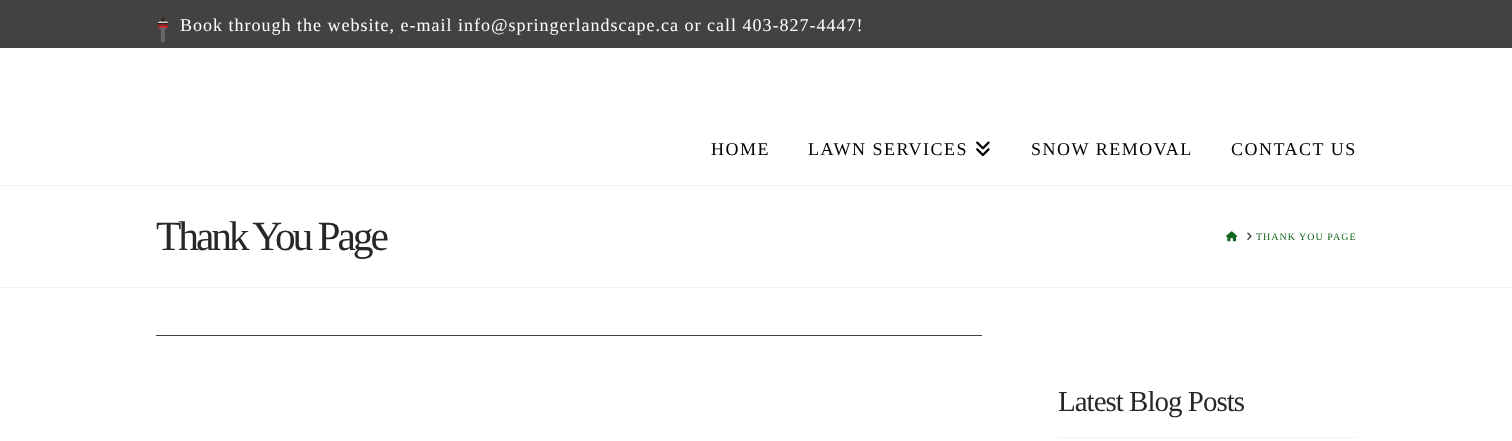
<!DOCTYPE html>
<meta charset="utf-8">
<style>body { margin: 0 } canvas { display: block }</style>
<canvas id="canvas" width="1512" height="441"></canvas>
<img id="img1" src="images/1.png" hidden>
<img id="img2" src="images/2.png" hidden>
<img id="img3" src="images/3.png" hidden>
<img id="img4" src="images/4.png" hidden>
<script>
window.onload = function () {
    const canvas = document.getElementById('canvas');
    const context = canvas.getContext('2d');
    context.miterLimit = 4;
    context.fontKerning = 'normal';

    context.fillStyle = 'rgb(255, 255, 255)';
    context.fillRect(0, 0, 1512, 441);
    context.fillStyle = 'rgb(66, 66, 66)';
    context.fillRect(0, 0, 1512, 48);
    context.drawImage(document.getElementById('img1'), 156, 14, 14, 28);
    context.drawImage(document.getElementById('img2'), 976, 141, 14, 16);
    context.fillStyle = 'rgb(242, 242, 242)';
    context.fillRect(0, 185, 1512, 1);
    context.fillRect(0, 287, 1512, 1);
    context.drawImage(document.getElementById('img3'), 1226, 231, 12, 11);
    context.drawImage(document.getElementById('img4'), 1247, 232, 5, 8);
    context.fillStyle = 'rgb(66, 66, 66)';
    context.fillRect(156, 335, 826, 1);
    context.fillStyle = 'rgb(242, 242, 242)';
    context.fillRect(1058, 437, 298, 1);
    context.letterSpacing = '1px';
    context.font = '18px Liberation Serif';
    context.fillStyle = 'rgb(255, 255, 255)';
    context.fillText('Book through the website, e-mail info@springerlandscape.ca or call 403-827-4447!', 180, 31);
    context.letterSpacing = '1.5px';
    context.fillStyle = 'rgb(0, 0, 0)';
    context.fillText('HOME', 711, 155);
    context.fillText('LAWN SERVICES', 808, 155);
    context.fillText('SNOW REMOVAL', 1031, 155);
    context.fillText('CONTACT US', 1231, 155);
    context.letterSpacing = '-3.1px';
    context.font = '41.5px Liberation Serif';
    context.fillStyle = 'rgb(39, 39, 39)';
    context.fillText('Thank You Page', 156, 250);
    context.letterSpacing = '1px';
    context.font = '10px Liberation Serif';
    context.fillStyle = 'rgb(20, 103, 33)';
    context.fillText('THANK YOU PAGE', 1256, 240);
    context.letterSpacing = '-1px';
    context.font = '29px Liberation Serif';
    context.fillStyle = 'rgb(39, 39, 39)';
    context.fillText('Latest Blog Posts', 1058, 411);
};
</script>
